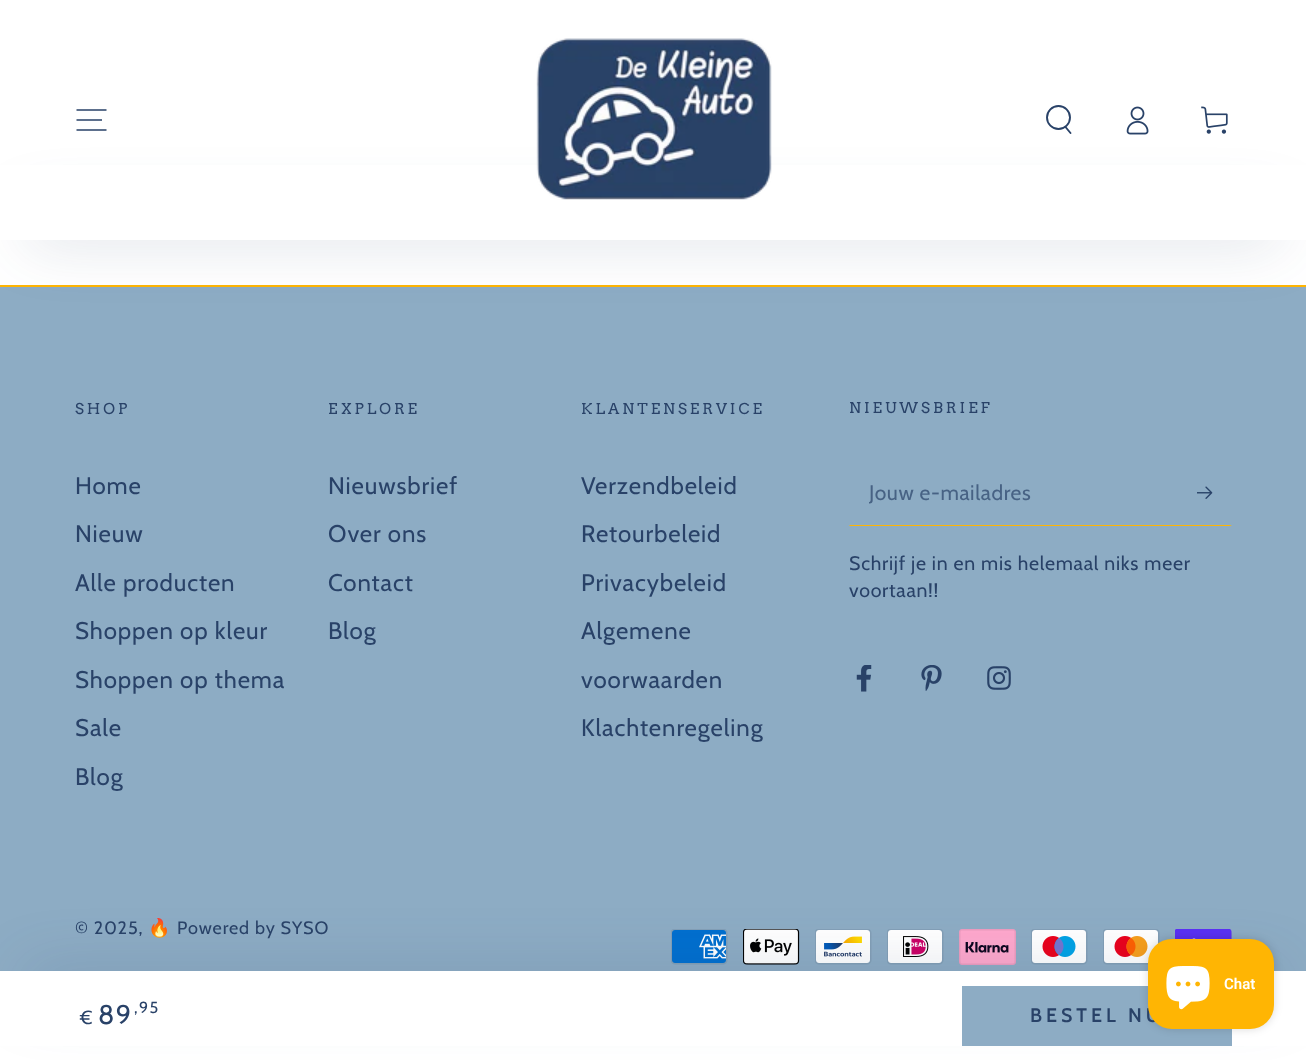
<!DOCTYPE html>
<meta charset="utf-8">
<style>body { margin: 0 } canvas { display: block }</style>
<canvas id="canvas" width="1306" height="1060"></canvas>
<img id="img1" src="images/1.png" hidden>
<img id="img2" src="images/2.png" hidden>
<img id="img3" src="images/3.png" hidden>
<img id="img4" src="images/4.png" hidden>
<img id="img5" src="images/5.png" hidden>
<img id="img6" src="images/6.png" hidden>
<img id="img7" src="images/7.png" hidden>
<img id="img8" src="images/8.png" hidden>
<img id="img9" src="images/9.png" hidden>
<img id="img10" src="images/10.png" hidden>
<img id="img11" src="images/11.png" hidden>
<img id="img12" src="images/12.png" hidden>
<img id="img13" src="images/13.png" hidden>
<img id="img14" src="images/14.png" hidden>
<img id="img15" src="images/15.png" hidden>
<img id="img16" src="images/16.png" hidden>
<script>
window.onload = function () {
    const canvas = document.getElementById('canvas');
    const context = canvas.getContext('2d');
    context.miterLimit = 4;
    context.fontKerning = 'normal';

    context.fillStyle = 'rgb(255, 255, 255)';
    context.fillRect(0, 0, 1306, 1060);
    context.fillStyle = 'rgb(141, 172, 196)';
    context.fillRect(0, 287, 1306, 684);
    context.fillStyle = 'rgb(255, 181, 3)';
    context.fillRect(0, 285, 1306, 2);
    context.fillStyle = 'rgba(41, 66, 104, 0.2)';
    context.filter = 'blur(30px)';
    context.beginPath();
    context.roundRect(23, 210, 1261, 30, 15);
    context.fill();
    context.filter = 'none';
    context.beginPath();
    context.moveTo(76.5, 130);
    context.lineTo(106.5, 130);
    context.moveTo(76.5, 120);
    context.lineTo(102, 120);
    context.moveTo(76.5, 110);
    context.lineTo(106.5, 110);
    context.strokeStyle = 'rgb(41, 66, 104)';
    context.lineWidth = 1.7;
    context.stroke();
    context.fillStyle = 'rgb(255, 255, 255)';
    context.fillRect(0, 165, 1306, 75);
    context.drawImage(document.getElementById('img1'), 536, 38, 236, 162);
    context.beginPath();
    context.arc(1058.5, 117.5, 11.5, 0, 2 * Math.PI);
    context.lineWidth = 1.9;
    context.stroke();
    context.beginPath();
    context.moveTo(1065.5, 127);
    context.lineTo(1070.5, 133);
    context.lineCap = 'round';
    context.stroke();
    context.drawImage(document.getElementById('img2'), 1126, 106, 23, 29);
    context.drawImage(document.getElementById('img3'), 1201, 106, 27, 28);
    context.fillStyle = 'rgb(255, 181, 3)';
    context.beginPath();
    context.moveTo(1232, 526);
    context.lineTo(849, 526);
    context.lineTo(850, 525);
    context.lineTo(1230, 525);
    context.closePath();
    context.fill();
    context.drawImage(document.getElementById('img4'), 1197, 486, 16, 13);
    context.drawImage(document.getElementById('img5'), 856, 665, 16, 27);
    context.drawImage(document.getElementById('img6'), 921, 665, 21, 26);
    context.drawImage(document.getElementById('img7'), 987, 666, 24, 24);
    context.drawImage(document.getElementById('img8'), 671, 929, 57, 36);
    context.drawImage(document.getElementById('img9'), 743, 929, 57, 36);
    context.drawImage(document.getElementById('img10'), 815, 929, 57, 36);
    context.drawImage(document.getElementById('img11'), 887, 929, 57, 36);
    context.drawImage(document.getElementById('img12'), 959, 929, 57, 36);
    context.drawImage(document.getElementById('img13'), 1031, 929, 57, 36);
    context.drawImage(document.getElementById('img14'), 1103, 929, 57, 36);
    context.drawImage(document.getElementById('img15'), 1175, 929, 57, 10);
    context.fillStyle = 'rgba(41, 66, 104, 0.2)';
    context.filter = 'blur(30px)';
    context.beginPath();
    context.roundRect(23, 971, 1261, 30, 15);
    context.fill();
    context.filter = 'none';
    context.fillStyle = 'rgb(255, 255, 255)';
    context.fillRect(0, 971, 1306, 75);
    context.fillStyle = 'rgb(141, 172, 196)';
    context.fillRect(962, 986, 270, 60);
    context.fillStyle = 'rgba(0, 0, 0, 0.15)';
    context.filter = 'blur(4px)';
    context.beginPath();
    context.roundRect(1148, 939, 126, 90, 24);
    context.fill();
    context.filter = 'none';
    context.letterSpacing = '3px';
    context.font = '15px Arvo';
    context.fillStyle = 'rgb(41, 66, 104)';
    context.fillText('SHOP', 75, 414);
    context.letterSpacing = '0.9px';
    context.font = '24px Cabin';
    context.fillText('Home', 75, 494);
    context.fillText('Nieuw', 75, 542);
    context.fillText('Alle producten', 75, 591);
    context.fillText('Shoppen op kleur', 75, 639);
    context.fillText('Shoppen op thema', 75, 688);
    context.fillText('Sale', 75, 736);
    context.fillText('Blog', 75, 785);
    context.letterSpacing = '3px';
    context.font = '15px Arvo';
    context.fillText('EXPLORE', 328, 414);
    context.letterSpacing = '0.9px';
    context.font = '24px Cabin';
    context.fillText('Nieuwsbrief', 328, 494);
    context.fillText('Over ons', 328, 542);
    context.fillText('Contact', 328, 591);
    context.fillText('Blog', 328, 639);
    context.letterSpacing = '3px';
    context.font = '15px Arvo';
    context.fillText('KLANTENSERVICE', 581, 414);
    context.letterSpacing = '0.9px';
    context.font = '24px Cabin';
    context.fillText('Verzendbeleid', 581, 494);
    context.fillText('Retourbeleid', 581, 542);
    context.fillText('Privacybeleid', 581, 591);
    context.fillText('Algemene', 581, 639);
    context.fillText('voorwaarden', 581, 688);
    context.fillText('Klachtenregeling', 581, 736);
    context.letterSpacing = '3px';
    context.font = '15px Arvo';
    context.fillText('NIEUWSBRIEF', 849, 413);
    context.save();
    context.beginPath();
    context.rect(869, 480, 361, 27);
    context.clip();
    context.letterSpacing = '0.6px';
    context.font = '21px Cabin';
    context.fillStyle = 'rgb(71, 98, 132)';
    context.fillText('Jouw e-mailadres', 869, 500);
    context.restore();
    context.letterSpacing = '0.75px';
    context.font = '19.5px Cabin';
    context.fillText('Schrijf je in en mis helemaal niks meer', 849, 570);
    context.fillText('voortaan!!', 849, 597);
    context.letterSpacing = '0.9px';
    context.font = '18px Cabin';
    context.fillText('© 2025,', 75, 934);
    context.font = '18px Noto Color Emoji';
    context.fillText('🔥', 148, 934);
    context.font = '18px Cabin';
    context.fillText('Powered by SYSO', 177, 934);
    context.letterSpacing = '1.5px';
    context.font = '19px Cabin';
    context.fillText('€', 80, 1024);
    context.font = '27px Cabin';
    context.fillText('89', 98, 1024);
    context.font = '16px Cabin';
    context.fillText(',95', 134, 1013);
    context.letterSpacing = '4px';
    context.font = '600 19.5px Cabin';
    context.fillText('BESTEL NU', 1030, 1022);
    context.fillStyle = 'rgb(255, 181, 3)';
    context.beginPath();
    context.roundRect(1148, 939, 126, 90, 24);
    context.fill();
    context.drawImage(document.getElementById('img16'), 1166, 966, 44, 44);
    context.letterSpacing = '0px';
    context.font = '600 15px Roboto';
    context.fillStyle = 'rgb(255, 255, 255)';
    context.fillText('Chat', 1224, 989);
};
</script>
